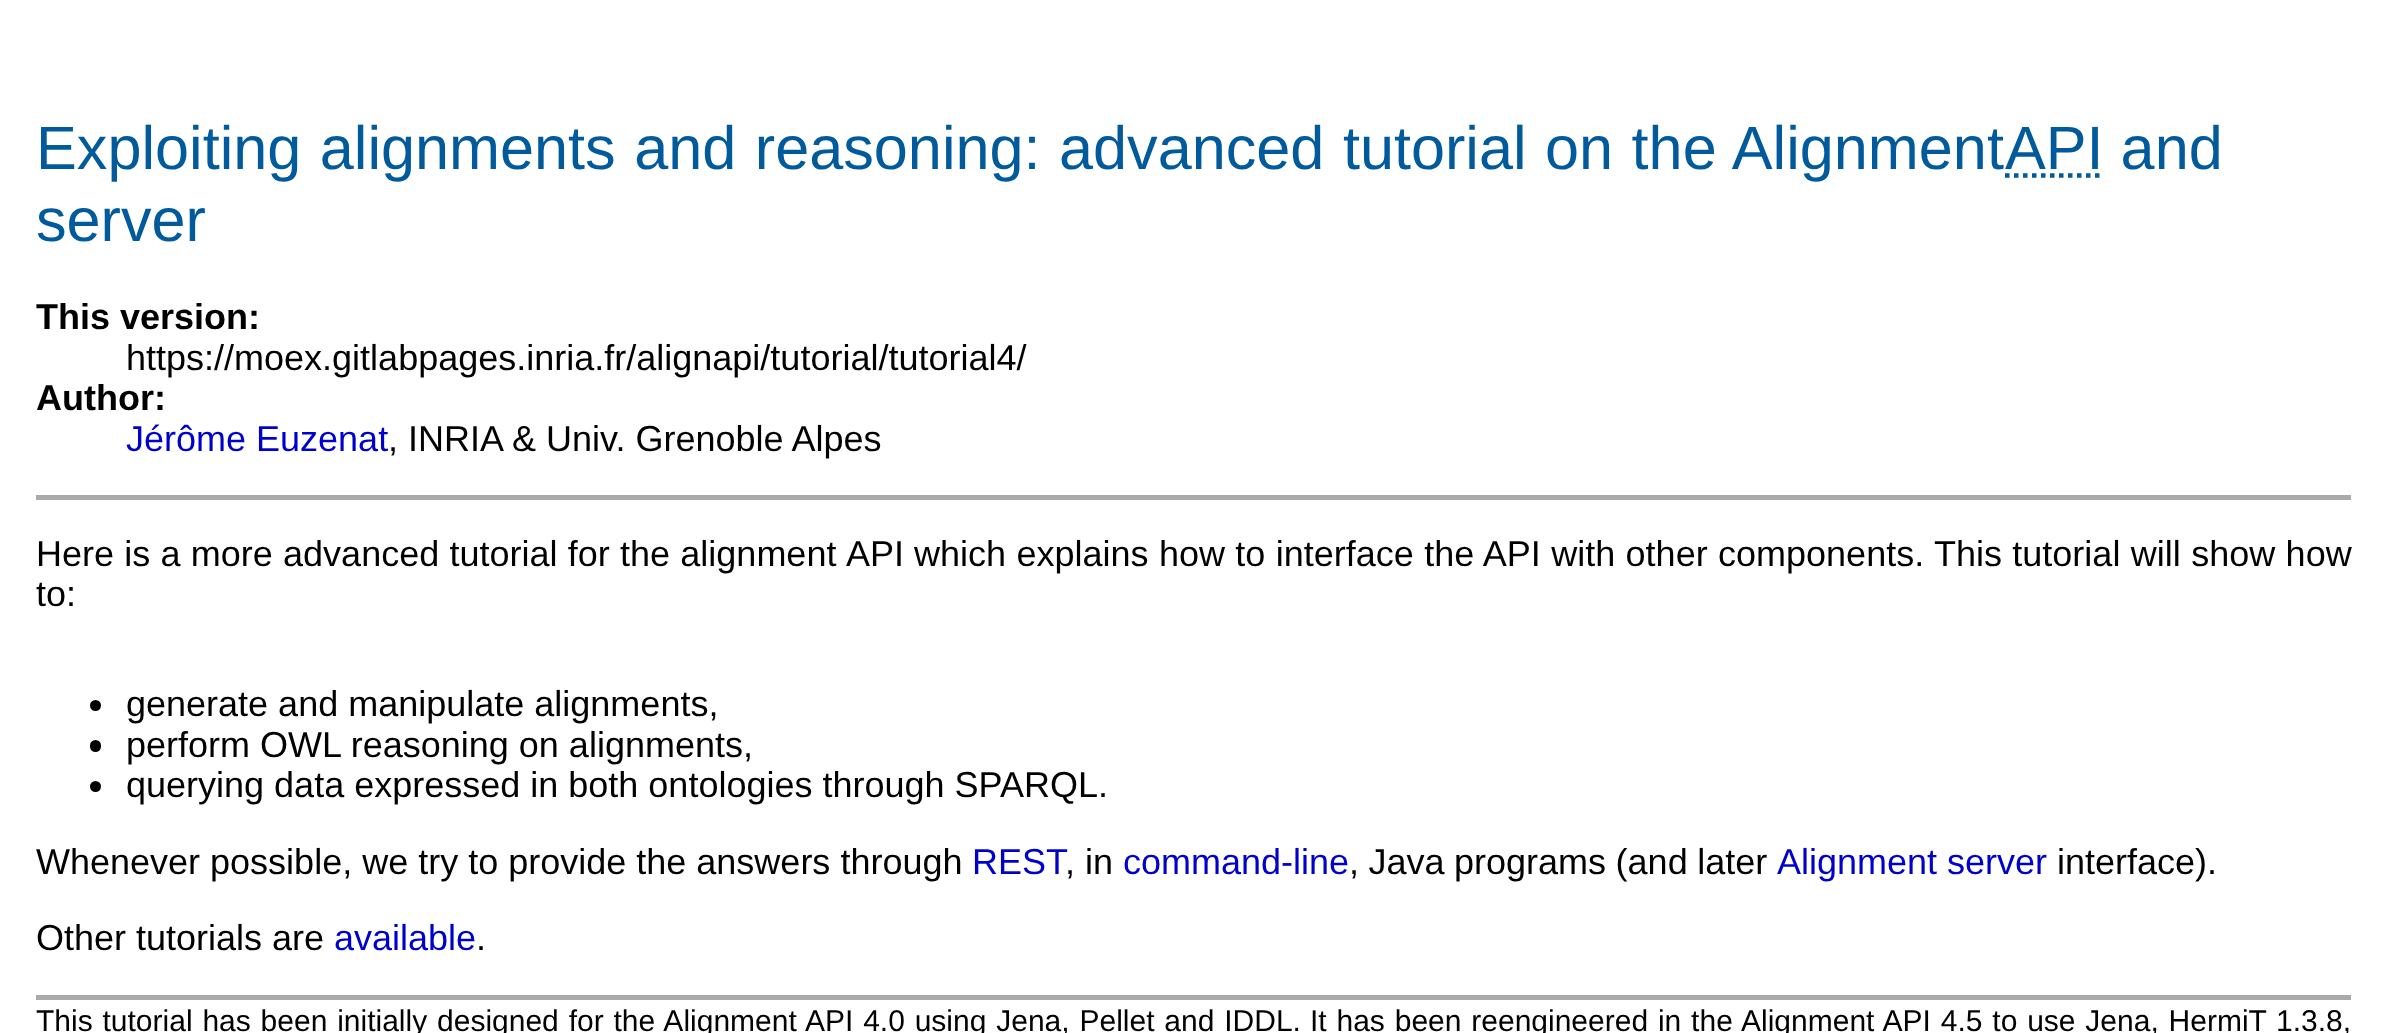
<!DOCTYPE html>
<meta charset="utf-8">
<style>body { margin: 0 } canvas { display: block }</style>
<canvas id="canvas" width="2386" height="1033"></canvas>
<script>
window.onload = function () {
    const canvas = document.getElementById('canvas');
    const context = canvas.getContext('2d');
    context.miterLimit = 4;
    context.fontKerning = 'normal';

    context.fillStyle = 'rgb(255, 255, 255)';
    context.fillRect(0, 0, 2386, 1033);
    context.beginPath();
    context.moveTo(2005, 175.5);
    context.lineTo(2103.5, 175.5);
    context.strokeStyle = 'rgb(0, 90, 156)';
    context.lineWidth = 4.5;
    context.setLineDash([4.5, 4.5]);
    context.stroke();
    context.fillStyle = 'rgb(170, 170, 170)';
    context.fillRect(36, 495, 2315, 5);
    context.fillStyle = 'rgb(0, 0, 0)';
    context.beginPath();
    context.arc(95.5, 705.5, 5.5, 0, 2 * Math.PI);
    context.fill();
    context.beginPath();
    context.roundRect(90, 740, 11, 12, 5.5);
    context.fill();
    context.beginPath();
    context.arc(95.5, 786.5, 5.5, 0, 2 * Math.PI);
    context.fill();
    context.fillStyle = 'rgb(170, 170, 170)';
    context.fillRect(36, 995, 2315, 5);
    context.wordSpacing = '1.5px';
    context.font = '61.2px Liberation Sans';
    context.fillStyle = 'rgb(0, 90, 156)';
    context.fillText('Exploiting alignments and reasoning: advanced tutorial on the Alignment', 36, 169);
    context.wordSpacing = '0px';
    context.fillText('API and', 2005, 169);
    context.fillText('server', 36, 241);
    context.font = 'bold 36px Liberation Sans';
    context.fillStyle = 'rgb(0, 0, 0)';
    context.fillText('This version:', 36, 329);
    context.font = '36px Liberation Sans';
    context.fillText('https://moex.gitlabpages.inria.fr/alignapi/tutorial/tutorial4/', 126, 370);
    context.font = 'bold 36px Liberation Sans';
    context.fillText('Author:', 36, 410);
    context.font = '36px Liberation Sans';
    context.fillStyle = 'rgb(0, 0, 204)';
    context.fillText('Jérôme Euzenat', 126, 451);
    context.fillStyle = 'rgb(0, 0, 0)';
    context.fillText(', INRIA & Univ. Grenoble Alpes', 388, 451);
    context.wordSpacing = '0.25px';
    context.fillText('Here is a more advanced tutorial for the alignment', 36, 566);
    context.wordSpacing = '0px';
    context.fillText('API', 846, 566);
    context.wordSpacing = '0.4px';
    context.fillText('which explains how to interface the API with other components. This tutorial will show how', 914, 566);
    context.wordSpacing = '0px';
    context.fillText('to:', 36, 606);
    context.fillText('generate and manipulate alignments,', 126, 716);
    context.fillText('perform OWL reasoning on alignments,', 126, 757);
    context.fillText('querying data expressed in both ontologies through SPARQL.', 126, 797);
    context.fillText('Whenever possible, we try to provide the answers through', 36, 874);
    context.fillStyle = 'rgb(0, 0, 204)';
    context.fillText('REST', 972, 874);
    context.fillStyle = 'rgb(0, 0, 0)';
    context.fillText(', in', 1065, 874);
    context.fillStyle = 'rgb(0, 0, 204)';
    context.fillText('command-line', 1123, 874);
    context.wordSpacing = '-0.5px';
    context.fillStyle = 'rgb(0, 0, 0)';
    context.fillText(', Java programs (and later', 1349, 874);
    context.wordSpacing = '0px';
    context.fillStyle = 'rgb(0, 0, 204)';
    context.fillText('Alignment server', 1777, 874);
    context.fillStyle = 'rgb(0, 0, 0)';
    context.fillText('interface).', 2057, 874);
    context.fillText('Other tutorials are', 36, 950);
    context.fillStyle = 'rgb(0, 0, 204)';
    context.fillText('available', 334, 950);
    context.fillStyle = 'rgb(0, 0, 0)';
    context.fillText('.', 476, 950);
    context.wordSpacing = '1.5px';
    context.font = '30px Liberation Sans';
    context.fillText('This tutorial has been initially designed for the Alignment API 4.0 using Jena, Pellet and IDDL.', 36, 1031);
    context.fillText('It has been reengineered in the Alignment API 4.5 to use Jena, HermiT', 1310, 1031);
    context.wordSpacing = '0px';
    context.fillText('1.3.8,', 2276, 1031);
};
</script>
